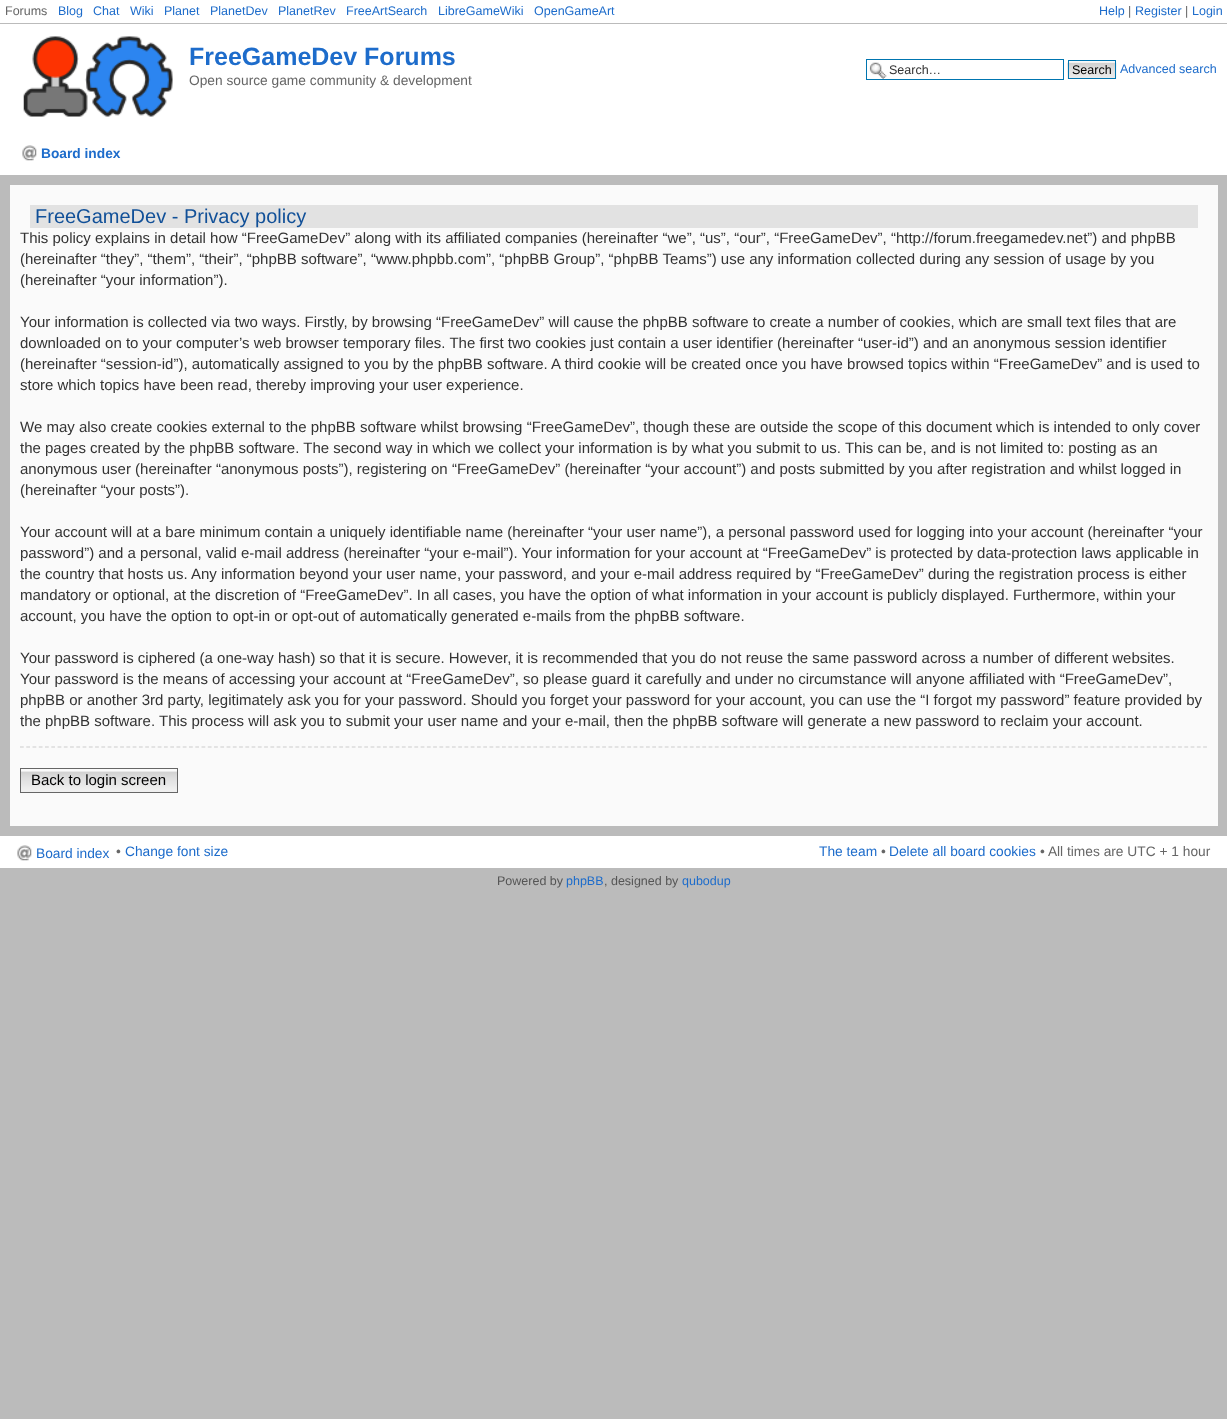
<!DOCTYPE html>
<meta charset="utf-8">
<style>body { margin: 0 } canvas { display: block }</style>
<canvas id="canvas" width="1227" height="1419"></canvas>
<img id="img1" src="images/1.png" hidden>
<img id="img2" src="images/2.png" hidden>
<img id="img3" src="images/3.png" hidden>
<img id="img4" src="images/4.png" hidden>
<img id="img5" src="images/5.png" hidden>
<script>
window.onload = function () {
    const canvas = document.getElementById('canvas');
    const context = canvas.getContext('2d');
    context.miterLimit = 4;
    context.fontKerning = 'normal';

    context.fillStyle = 'rgb(187, 187, 187)';
    context.fillRect(0, 0, 1227, 1419);
    context.fillStyle = 'rgb(255, 255, 255)';
    context.fillRect(0, 0, 1227, 175);
    context.fillStyle = 'rgb(187, 187, 187)';
    context.fillRect(0, 23, 1227, 1);
    context.drawImage(document.getElementById('img1'), 23, 36, 150, 81);
    context.drawImage(document.getElementById('img2'), 869, 62, 18, 17);
    context.strokeStyle = 'rgb(0, 117, 176)';
    context.strokeRect(866.5, 59.5, 197, 20);
    context.fillStyle = 'rgb(250, 250, 250)';
    context.fillRect(1069, 61, 46, 1);
    context.drawImage(document.getElementById('img3'), 1067, 62, 50, 17);
    context.strokeRect(1068.5, 60.5, 47, 18);
    context.drawImage(document.getElementById('img4'), 22, 145, 15, 16);
    context.fillRect(10, 185, 1208, 641);
    context.fillStyle = 'rgb(226, 226, 226)';
    context.fillRect(30, 205, 1168, 23);
    context.beginPath();
    context.moveTo(20, 747);
    context.lineTo(1207.5, 747);
    context.strokeStyle = 'rgb(204, 204, 204)';
    context.lineWidth = 1.2;
    context.setLineDash([3.75, 2.51]);
    context.stroke();
    context.drawImage(document.getElementById('img5'), 21, 771, 156, 21);
    context.strokeStyle = 'rgb(102, 102, 102)';
    context.lineWidth = 1;
    context.setLineDash([]);
    context.strokeRect(20.5, 768.5, 157, 24);
    context.fillStyle = 'rgb(255, 255, 255)';
    context.fillRect(0, 836, 1227, 32);
    context.drawImage(document.getElementById('img4'), 17, 845, 15, 16);
    context.font = '12.5px Liberation Sans';
    context.fillStyle = 'rgb(102, 102, 102)';
    context.fillText('Forums', 5, 15);
    context.fillStyle = 'rgb(29, 108, 203)';
    context.fillText('Blog', 58, 15);
    context.fillText('Chat', 93, 15);
    context.fillText('Wiki', 130, 15);
    context.fillText('Planet', 164, 15);
    context.fillText('PlanetDev', 210, 15);
    context.fillText('PlanetRev', 278, 15);
    context.fillText('FreeArtSearch', 346, 15);
    context.fillText('LibreGameWiki', 438, 15);
    context.fillText('OpenGameArt', 534, 15);
    context.fillText('Help', 1099, 15);
    context.fillStyle = 'rgb(102, 102, 102)';
    context.fillText('|', 1128, 15);
    context.fillStyle = 'rgb(29, 108, 203)';
    context.fillText('Register', 1135, 15);
    context.fillStyle = 'rgb(102, 102, 102)';
    context.fillText('|', 1185, 15);
    context.fillStyle = 'rgb(29, 108, 203)';
    context.fillText('Login', 1192, 15);
    context.font = 'bold 25px Liberation Sans';
    context.fillText('FreeGameDev Forums', 189, 65);
    context.font = '13.75px Liberation Sans';
    context.fillStyle = 'rgb(102, 102, 102)';
    context.fillText('Open source game community & development', 189, 85);
    context.font = '12.5px Liberation Sans';
    context.fillStyle = 'rgb(51, 51, 51)';
    context.fillText('Search…', 889, 74);
    context.fillStyle = 'rgb(0, 0, 0)';
    context.fillText('Search', 1072, 74);
    context.fillStyle = 'rgb(29, 108, 203)';
    context.fillText('Advanced search', 1120, 73);
    context.font = 'bold 13.75px Liberation Sans';
    context.fillText('Board index', 41, 158);
    context.font = '20px Liberation Sans';
    context.fillStyle = 'rgb(17, 80, 152)';
    context.fillText('FreeGameDev - Privacy policy', 35, 223);
    context.font = '15px Liberation Sans';
    context.fillStyle = 'rgb(51, 51, 51)';
    context.fillText('This policy explains in detail how “FreeGameDev” along with its affiliated companies (hereinafter “we”, “us”, “our”, “FreeGameDev”, “http://forum.freegamedev.net”) and phpBB', 20, 243);
    context.fillText('(hereinafter “they”, “them”, “their”, “phpBB software”, “www.phpbb.com”, “phpBB Group”, “phpBB Teams”) use any information collected during any session of usage by you', 20, 264);
    context.fillText('(hereinafter “your information”).', 20, 285);
    context.fillText('Your information is collected via two ways. Firstly, by browsing “FreeGameDev” will cause the phpBB software to create a number of cookies, which are small text files that are', 20, 327);
    context.fillText('downloaded on to your computer’s web browser temporary files. The first two cookies just contain a user identifier (hereinafter “user-id”) and an anonymous session identifier', 20, 348);
    context.fillText('(hereinafter “session-id”), automatically assigned to you by the phpBB software. A third cookie will be created once you have browsed topics within “FreeGameDev” and is used to', 20, 369);
    context.fillText('store which topics have been read, thereby improving your user experience.', 20, 390);
    context.fillText('We may also create cookies external to the phpBB software whilst browsing “FreeGameDev”, though these are outside the scope of this document which is intended to only cover', 20, 432);
    context.fillText('the pages created by the phpBB software. The second way in which we collect your information is by what you submit to us. This can be, and is not limited to: posting as an', 20, 453);
    context.fillText('anonymous user (hereinafter “anonymous posts”), registering on “FreeGameDev” (hereinafter “your account”) and posts submitted by you after registration and whilst logged in', 20, 474);
    context.fillText('(hereinafter “your posts”).', 20, 495);
    context.fillText('Your account will at a bare minimum contain a uniquely identifiable name (hereinafter “your user name”), a personal password used for logging into your account (hereinafter “your', 20, 537);
    context.fillText('password”) and a personal, valid e-mail address (hereinafter “your e-mail”). Your information for your account at “FreeGameDev” is protected by data-protection laws applicable in', 20, 558);
    context.fillText('the country that hosts us. Any information beyond your user name, your password, and your e-mail address required by “FreeGameDev” during the registration process is either', 20, 579);
    context.fillText('mandatory or optional, at the discretion of “FreeGameDev”. In all cases, you have the option of what information in your account is publicly displayed. Furthermore, within your', 20, 600);
    context.fillText('account, you have the option to opt-in or opt-out of automatically generated e-mails from the phpBB software.', 20, 621);
    context.fillText('Your password is ciphered (a one-way hash) so that it is secure. However, it is recommended that you do not reuse the same password across a number of different websites.', 20, 663);
    context.fillText('Your password is the means of accessing your account at “FreeGameDev”, so please guard it carefully and under no circumstance will anyone affiliated with “FreeGameDev”,', 20, 684);
    context.fillText('phpBB or another 3rd party, legitimately ask you for your password. Should you forget your password for your account, you can use the “I forgot my password” feature provided by', 20, 705);
    context.fillText('the phpBB software. This process will ask you to submit your user name and your e-mail, then the phpBB software will generate a new password to reclaim your account.', 20, 726);
    context.fillStyle = 'rgb(0, 0, 0)';
    context.fillText('Back to login screen', 31, 785);
    context.font = '13.75px Liberation Sans';
    context.fillStyle = 'rgb(29, 108, 203)';
    context.fillText('Board index', 36, 858);
    context.fillStyle = 'rgb(102, 102, 102)';
    context.fillText('•', 116, 856);
    context.fillStyle = 'rgb(29, 108, 203)';
    context.fillText('Change font size', 125, 856);
    context.fillText('The team', 819, 856);
    context.fillStyle = 'rgb(102, 102, 102)';
    context.fillText('•', 881, 856);
    context.fillStyle = 'rgb(29, 108, 203)';
    context.fillText('Delete all board cookies', 889, 856);
    context.fillStyle = 'rgb(102, 102, 102)';
    context.fillText('• All times are UTC + 1 hour', 1040, 856);
    context.font = '12.5px Liberation Sans';
    context.fillStyle = 'rgb(85, 85, 85)';
    context.fillText('Powered by', 497, 885);
    context.fillStyle = 'rgb(29, 108, 203)';
    context.fillText('phpBB', 566, 885);
    context.fillStyle = 'rgb(85, 85, 85)';
    context.fillText(', designed by', 604, 885);
    context.fillStyle = 'rgb(29, 108, 203)';
    context.fillText('qubodup', 682, 885);
};
</script>
